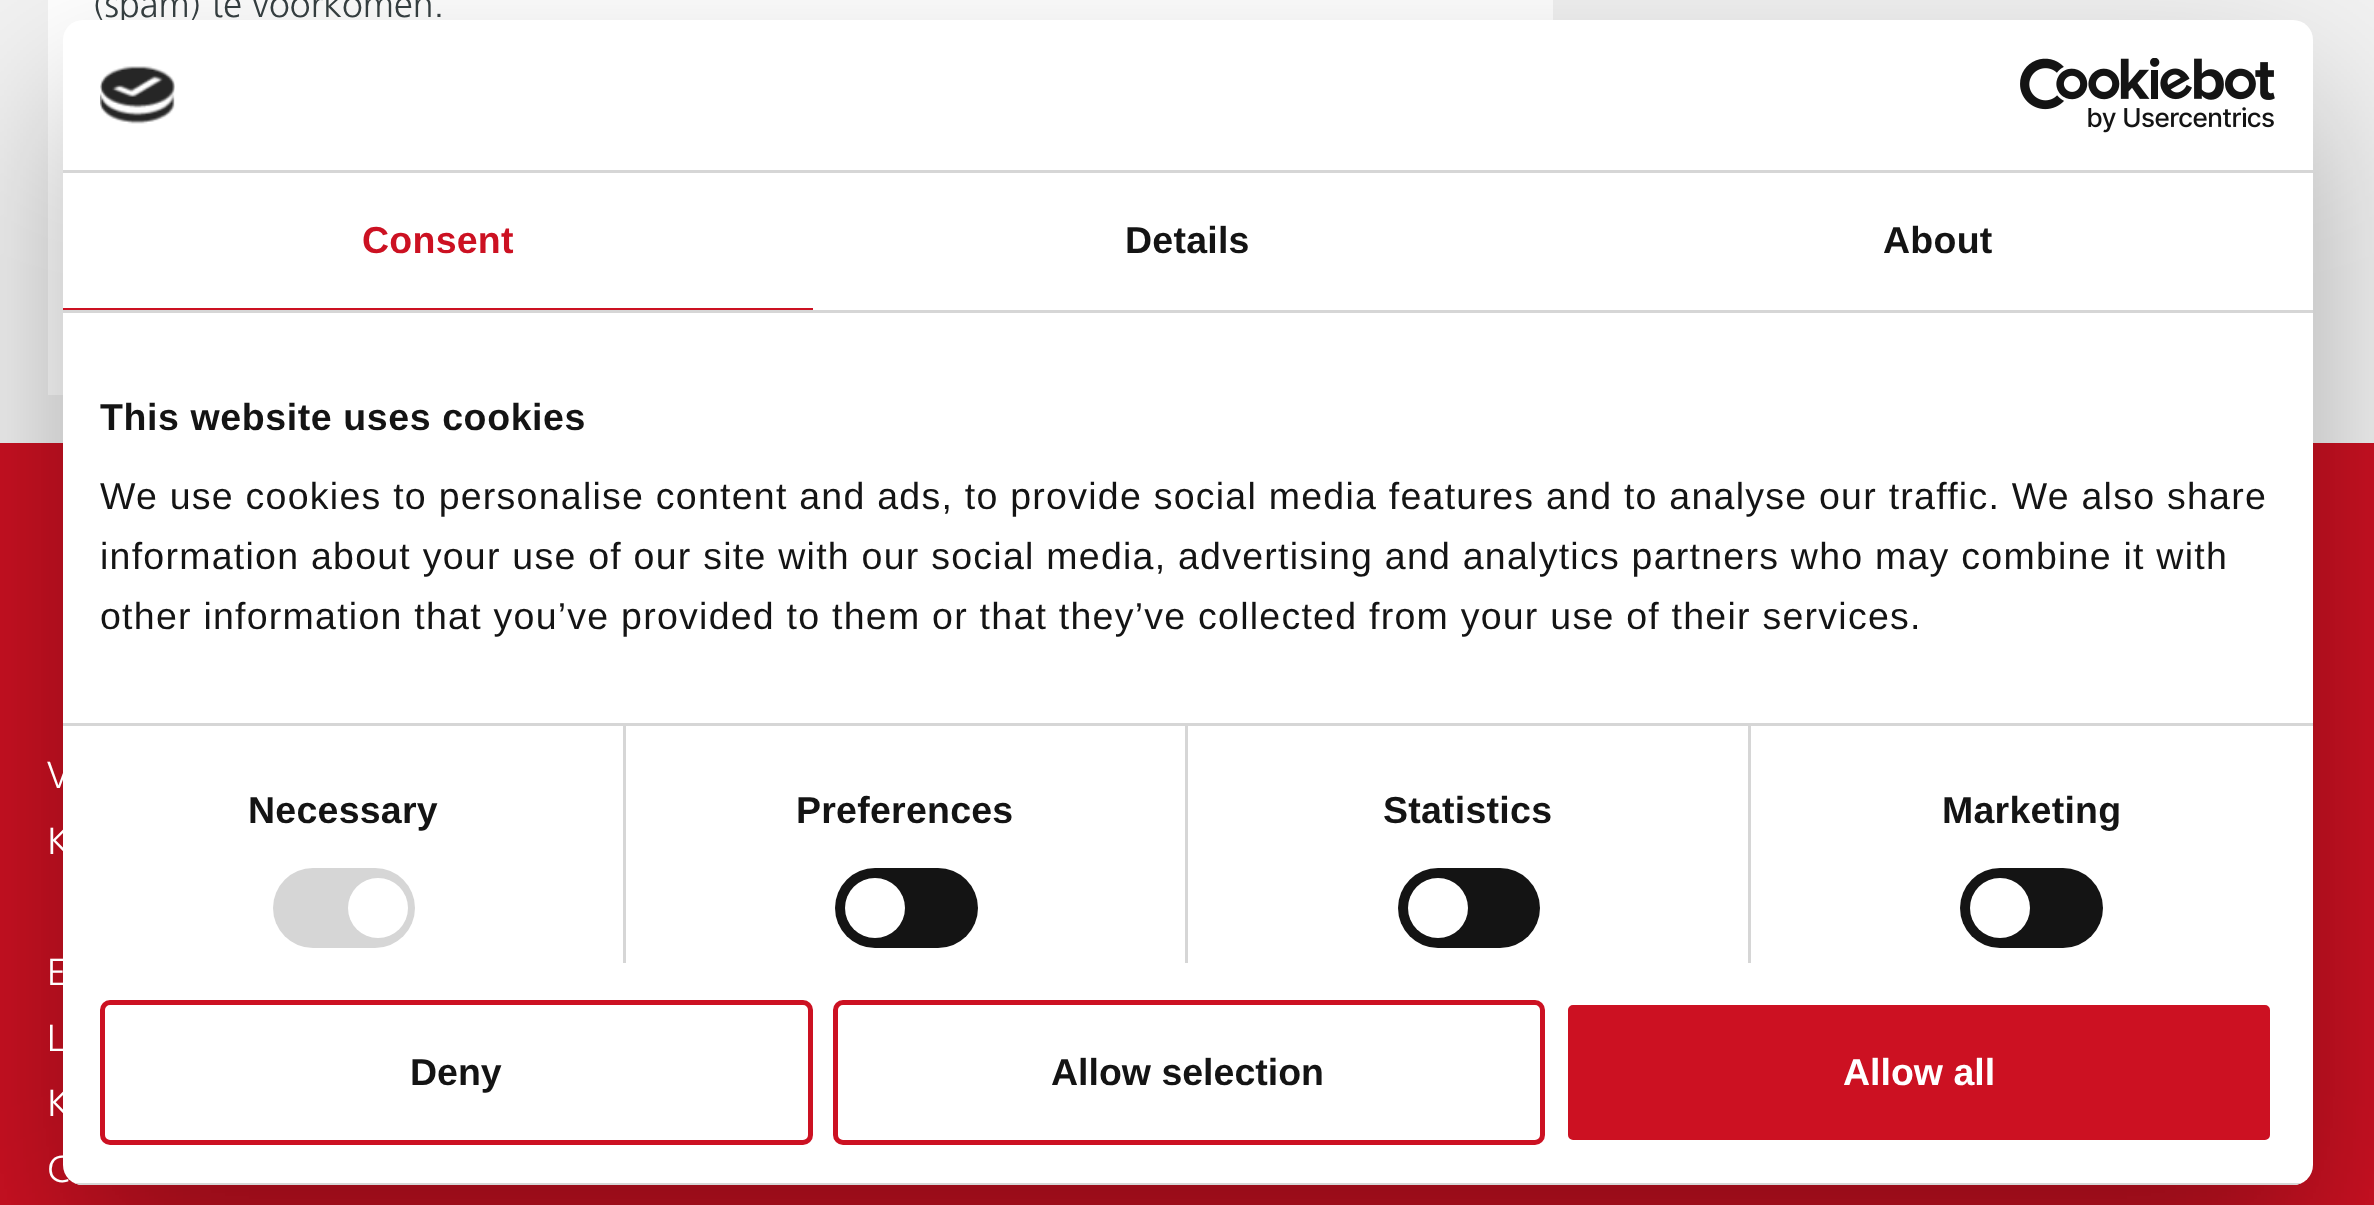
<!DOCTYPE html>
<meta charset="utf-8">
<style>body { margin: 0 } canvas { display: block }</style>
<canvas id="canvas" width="2374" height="1205"></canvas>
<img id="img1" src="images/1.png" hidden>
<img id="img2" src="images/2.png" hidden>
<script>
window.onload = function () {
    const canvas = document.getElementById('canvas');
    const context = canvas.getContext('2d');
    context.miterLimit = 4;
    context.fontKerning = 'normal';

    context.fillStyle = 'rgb(242, 242, 242)';
    context.fillRect(0, 0, 2374, 1205);
    context.fillStyle = 'rgb(255, 255, 255)';
    context.fillRect(48, 0, 1505, 265);
    context.fillRect(48, 265, 15, 130);
    context.fillStyle = 'rgb(204, 17, 34)';
    context.fillRect(0, 443, 2374, 762);
    context.fillStyle = 'rgba(0, 0, 0, 0.3)';
    context.filter = 'blur(85px)';
    context.beginPath();
    context.roundRect(63, 100, 2250, 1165, 20);
    context.fill();
    context.filter = 'none';
    context.font = '300 37.5px Frutiger';
    context.fillStyle = 'rgb(52, 61, 63)';
    context.fillText('(spam) te voorkomen.', 94, 17);
    context.fillStyle = 'rgb(255, 255, 255)';
    context.fillText('V', 47, 788);
    context.fillText('K', 47, 854);
    context.fillText('E', 47, 985);
    context.fillText('L', 47, 1051);
    context.fillText('K', 47, 1116);
    context.fillText('C', 47, 1182);
    context.beginPath();
    context.roundRect(63, 20, 2250, 1165, 20);
    context.fill();
    context.fillStyle = 'rgb(214, 214, 214)';
    context.fillRect(63, 170, 2250, 3);
    context.drawImage(document.getElementById('img1'), 100, 66, 75, 58);
    context.drawImage(document.getElementById('img2'), 2020, 58, 255, 75);
    context.fillRect(63, 310, 2250, 3);
    context.fillStyle = 'rgb(204, 17, 34)';
    context.fillRect(63, 308, 750, 2);
    context.letterSpacing = '0.25px';
    context.font = 'bold 37.5px Liberation Sans';
    context.fillText('Consent', 362, 253);
    context.fillStyle = 'rgb(20, 20, 20)';
    context.fillText('Details', 1125, 253);
    context.fillText('About', 1883, 253);
    context.letterSpacing = '0.6px';
    context.fillText('This website uses cookies', 100, 430);
    context.letterSpacing = '1.25px';
    context.font = '37.5px Liberation Sans';
    context.fillText('We use cookies to personalise content and ads, to provide social media features and to analyse our traffic. We also share', 100, 509);
    context.fillText('information about your use of our site with our social media, advertising and analytics partners who may combine it with', 100, 569);
    context.fillText('other information that you’ve provided to them or that they’ve collected from your use of their services.', 100, 629);
    context.fillStyle = 'rgb(214, 214, 214)';
    context.fillRect(623, 725, 3, 238);
    context.letterSpacing = '0.25px';
    context.font = 'bold 37.5px Liberation Sans';
    context.fillStyle = 'rgb(20, 20, 20)';
    context.fillText('Necessary', 248, 823);
    context.fillStyle = 'rgb(214, 214, 214)';
    context.beginPath();
    context.roundRect(273, 868, 142, 80, 40);
    context.fill();
    context.fillStyle = 'rgb(255, 255, 255)';
    context.beginPath();
    context.arc(378, 908, 30, 0, 2 * Math.PI);
    context.fill();
    context.fillStyle = 'rgb(214, 214, 214)';
    context.fillRect(1185, 725, 3, 238);
    context.fillStyle = 'rgb(20, 20, 20)';
    context.fillText('Preferences', 796, 823);
    context.beginPath();
    context.roundRect(835, 868, 143, 80, 40);
    context.fill();
    context.fillStyle = 'rgb(255, 255, 255)';
    context.beginPath();
    context.arc(875, 908, 30, 0, 2 * Math.PI);
    context.fill();
    context.fillStyle = 'rgb(214, 214, 214)';
    context.fillRect(1748, 725, 3, 238);
    context.fillRect(63, 723, 2250, 3);
    context.fillStyle = 'rgb(20, 20, 20)';
    context.fillText('Statistics', 1383, 823);
    context.beginPath();
    context.roundRect(1398, 868, 142, 80, 40);
    context.fill();
    context.fillStyle = 'rgb(255, 255, 255)';
    context.beginPath();
    context.arc(1438, 908, 30, 0, 2 * Math.PI);
    context.fill();
    context.fillStyle = 'rgb(20, 20, 20)';
    context.fillText('Marketing', 1942, 823);
    context.beginPath();
    context.roundRect(1960, 868, 143, 80, 40);
    context.fill();
    context.fillStyle = 'rgb(255, 255, 255)';
    context.beginPath();
    context.arc(2000, 908, 30, 0, 2 * Math.PI);
    context.fill();
    context.save();
    context.beginPath();
    context.roundRect(63, 20, 2250, 1165, 20);
    context.clip();
    context.fillStyle = 'rgb(214, 214, 214)';
    context.fillRect(74, 1183, 2228, 2);
    context.restore();
    context.beginPath();
    context.roundRect(102.5, 1002.5, 708, 140, 7.5);
    context.strokeStyle = 'rgb(204, 17, 34)';
    context.lineWidth = 5;
    context.stroke();
    context.letterSpacing = '0px';
    context.fillStyle = 'rgb(20, 20, 20)';
    context.fillText('Deny', 410, 1085);
    context.beginPath();
    context.roundRect(835.5, 1002.5, 707, 140, 7.5);
    context.stroke();
    context.fillText('Allow selection', 1051, 1085);
    context.fillStyle = 'rgb(204, 17, 34)';
    context.beginPath();
    context.roundRect(1565.5, 1002.5, 707, 140, 7.5);
    context.fill();
    context.strokeStyle = 'rgb(255, 255, 255)';
    context.stroke();
    context.fillStyle = 'rgb(255, 255, 255)';
    context.fillText('Allow all', 1843, 1085);
};
</script>
